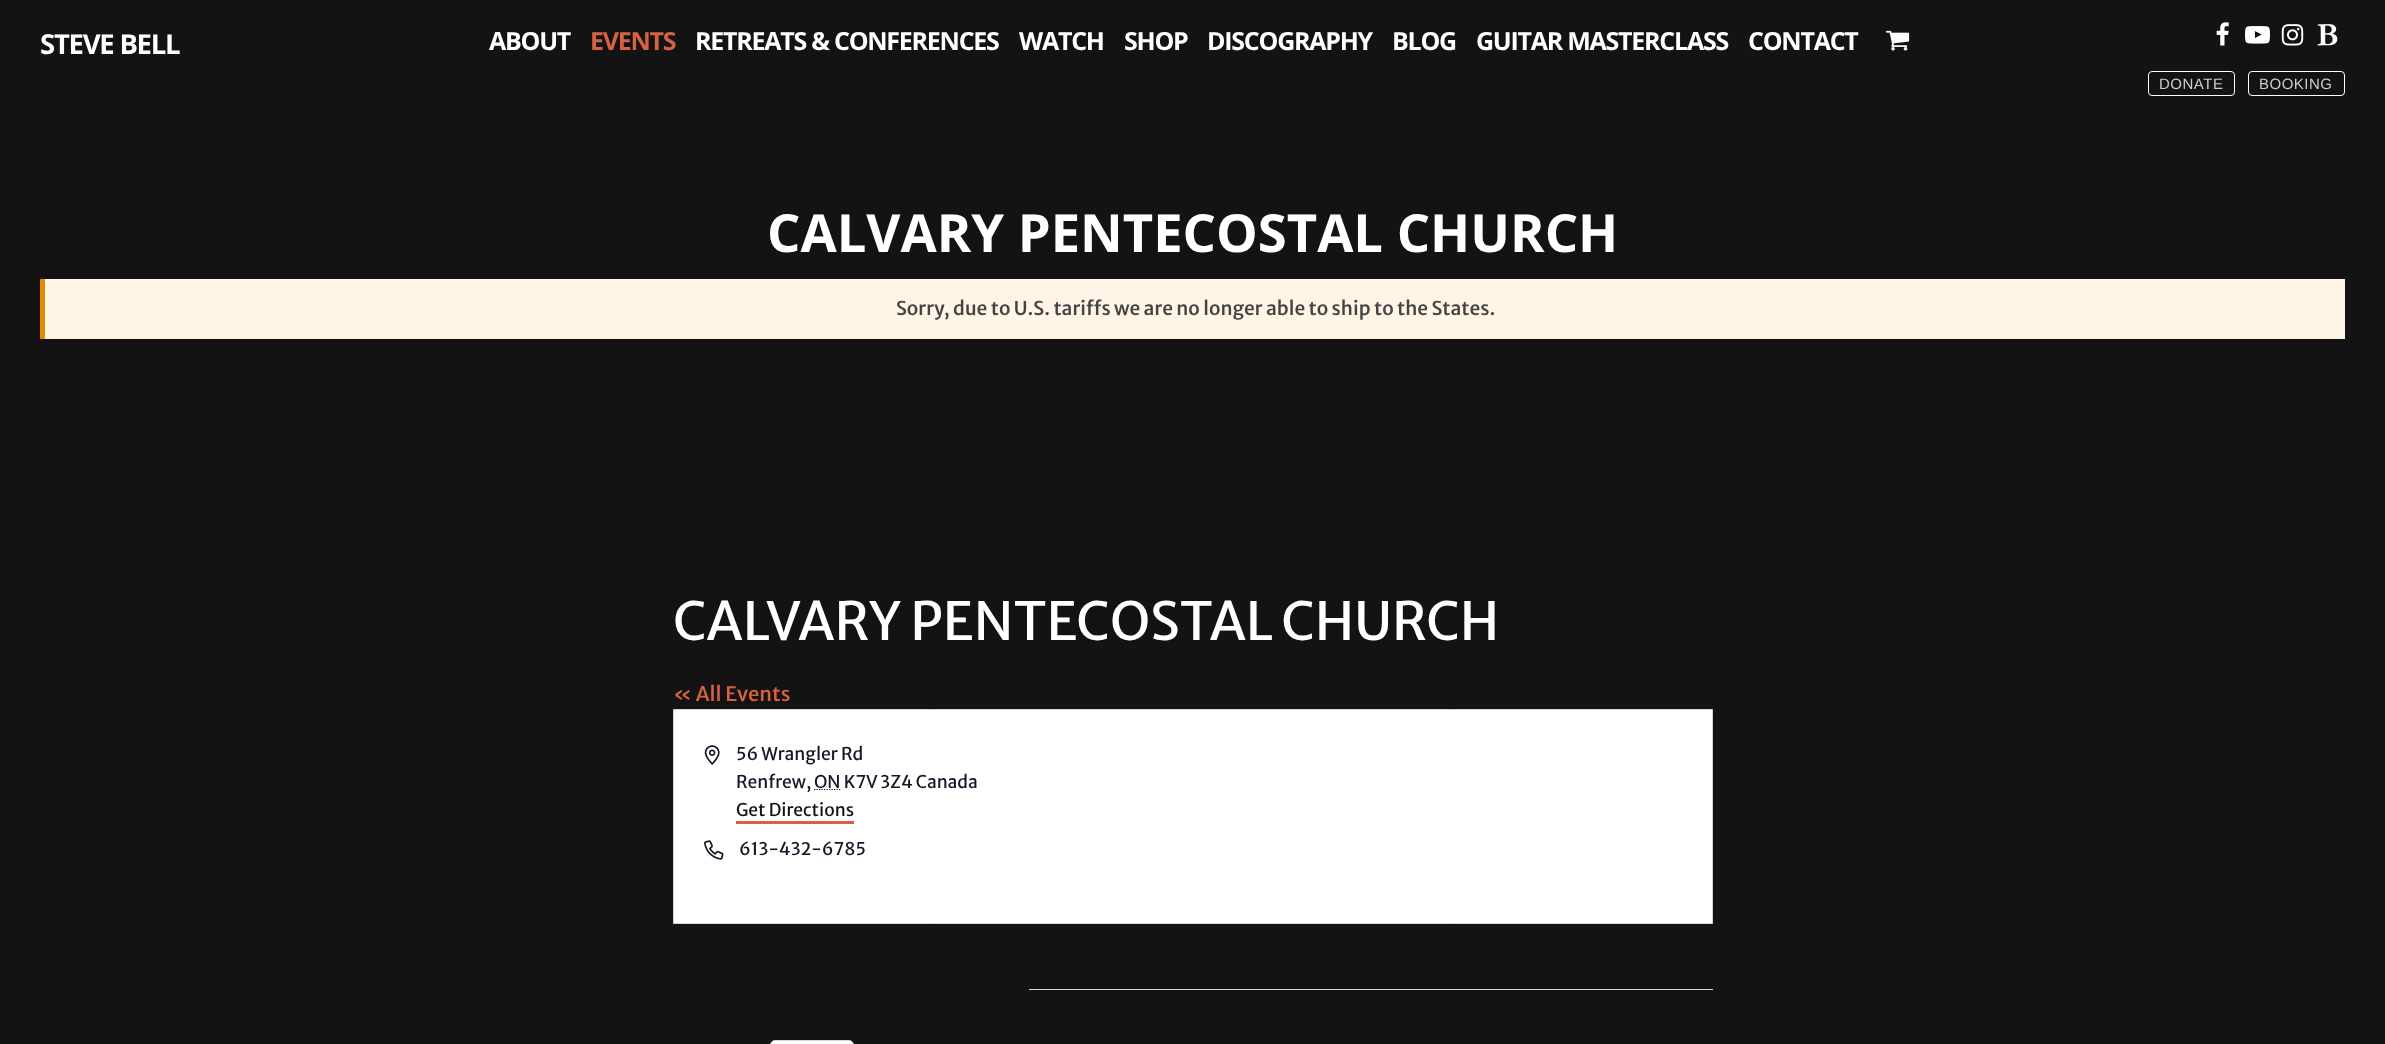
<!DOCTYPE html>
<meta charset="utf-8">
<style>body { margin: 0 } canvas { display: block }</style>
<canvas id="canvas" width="2385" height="1044"></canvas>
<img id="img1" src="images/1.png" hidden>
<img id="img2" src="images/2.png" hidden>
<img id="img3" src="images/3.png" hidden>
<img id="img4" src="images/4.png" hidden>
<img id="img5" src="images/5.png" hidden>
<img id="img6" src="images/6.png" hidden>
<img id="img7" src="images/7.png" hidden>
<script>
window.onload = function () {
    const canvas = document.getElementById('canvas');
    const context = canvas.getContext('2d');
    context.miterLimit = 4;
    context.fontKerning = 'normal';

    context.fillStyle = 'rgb(19, 19, 19)';
    context.fillRect(0, 0, 2385, 1044);
    context.drawImage(document.getElementById('img1'), 1885, 30, 25, 21);
    context.drawImage(document.getElementById('img2'), 2216, 22, 13, 24);
    context.drawImage(document.getElementById('img3'), 2245, 26, 25, 18);
    context.drawImage(document.getElementById('img4'), 2281, 24, 23, 22);
    context.drawImage(document.getElementById('img5'), 2317, 24, 21, 22);
    context.beginPath();
    context.roundRect(2148.5, 71.5, 86, 24, 3.5);
    context.strokeStyle = 'rgb(255, 255, 255)';
    context.stroke();
    context.beginPath();
    context.roundRect(2248.5, 71.5, 96, 24, 3.5);
    context.stroke();
    context.fillStyle = 'rgb(255, 244, 229)';
    context.fillRect(45, 279, 2300, 60);
    context.fillStyle = 'rgb(229, 138, 0)';
    context.fillRect(40, 279, 5, 60);
    context.fillStyle = 'rgb(255, 255, 255)';
    context.beginPath();
    context.rect(673.5, 709.5, 1039, 214);
    context.fill();
    context.strokeStyle = 'rgb(213, 213, 213)';
    context.stroke();
    context.drawImage(document.getElementById('img6'), 704, 745, 16, 20);
    context.beginPath();
    context.moveTo(814, 789.5);
    context.lineTo(840.5, 789.5);
    context.strokeStyle = 'rgb(20, 24, 39)';
    context.lineWidth = 1.2;
    context.setLineDash([1.25, 1.25]);
    context.stroke();
    context.fillStyle = 'rgb(213, 98, 64)';
    context.fillRect(736, 821, 118, 3);
    context.drawImage(document.getElementById('img7'), 704, 840, 20, 20);
    context.fillStyle = 'rgb(213, 213, 213)';
    context.fillRect(1029, 989, 684, 1);
    context.fillStyle = 'rgb(255, 255, 255)';
    context.beginPath();
    context.roundRect(770.5, 1040.5, 83, 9, 4.5);
    context.fill();
    context.strokeStyle = 'rgb(213, 213, 213)';
    context.lineWidth = 1;
    context.setLineDash([]);
    context.stroke();
    context.letterSpacing = '-1.25px';
    context.font = 'bold 27.5px Open Sans';
    context.fillText('STEVE BELL', 40, 54);
    context.font = 'bold 25px Open Sans';
    context.fillText('ABOUT', 489, 50);
    context.fillStyle = 'rgb(213, 98, 64)';
    context.fillText('EVENTS', 590, 50);
    context.fillStyle = 'rgb(255, 255, 255)';
    context.fillText('RETREATS & CONFERENCES', 695, 50);
    context.fillText('WATCH', 1019, 50);
    context.fillText('SHOP', 1124, 50);
    context.fillText('DISCOGRAPHY', 1207, 50);
    context.fillText('BLOG', 1392, 50);
    context.fillText('GUITAR MASTERCLASS', 1476, 50);
    context.fillText('CONTACT', 1748, 50);
    context.letterSpacing = '0.5px';
    context.font = '15px Liberation Sans';
    context.fillStyle = 'rgb(205, 205, 205)';
    context.fillText('DONATE', 2159, 89);
    context.fillText('BOOKING', 2259, 89);
    context.letterSpacing = '0px';
    context.font = 'bold 52.5px Open Sans';
    context.fillStyle = 'rgb(255, 255, 255)';
    context.fillText('CALVARY PENTECOSTAL CHURCH', 767, 252);
    context.font = '500 19px Merriweather Sans';
    context.fillStyle = 'rgb(68, 68, 68)';
    context.fillText('Sorry, due to U.S. tariffs we are no longer able to ship to the States.', 896, 315);
    context.font = '52.5px Merriweather Sans';
    context.fillStyle = 'rgb(255, 255, 255)';
    context.fillText('CALVARY PENTECOSTAL CHURCH', 673, 640);
    context.font = '500 20px Merriweather Sans';
    context.fillStyle = 'rgb(213, 98, 64)';
    context.fillText('« All Events', 673, 701);
    context.font = '17.5px Merriweather Sans';
    context.fillStyle = 'rgb(20, 24, 39)';
    context.fillText('56 Wrangler Rd', 736, 760);
    context.fillText('Renfrew,', 736, 788);
    context.fillText('ON K7V 3Z4 Canada', 814, 788);
    context.fillStyle = 'rgb(19, 19, 19)';
    context.fillText('Get Directions', 736, 816);
    context.fillStyle = 'rgb(20, 24, 39)';
    context.fillText('613-432-6785', 739, 855);
};
</script>
